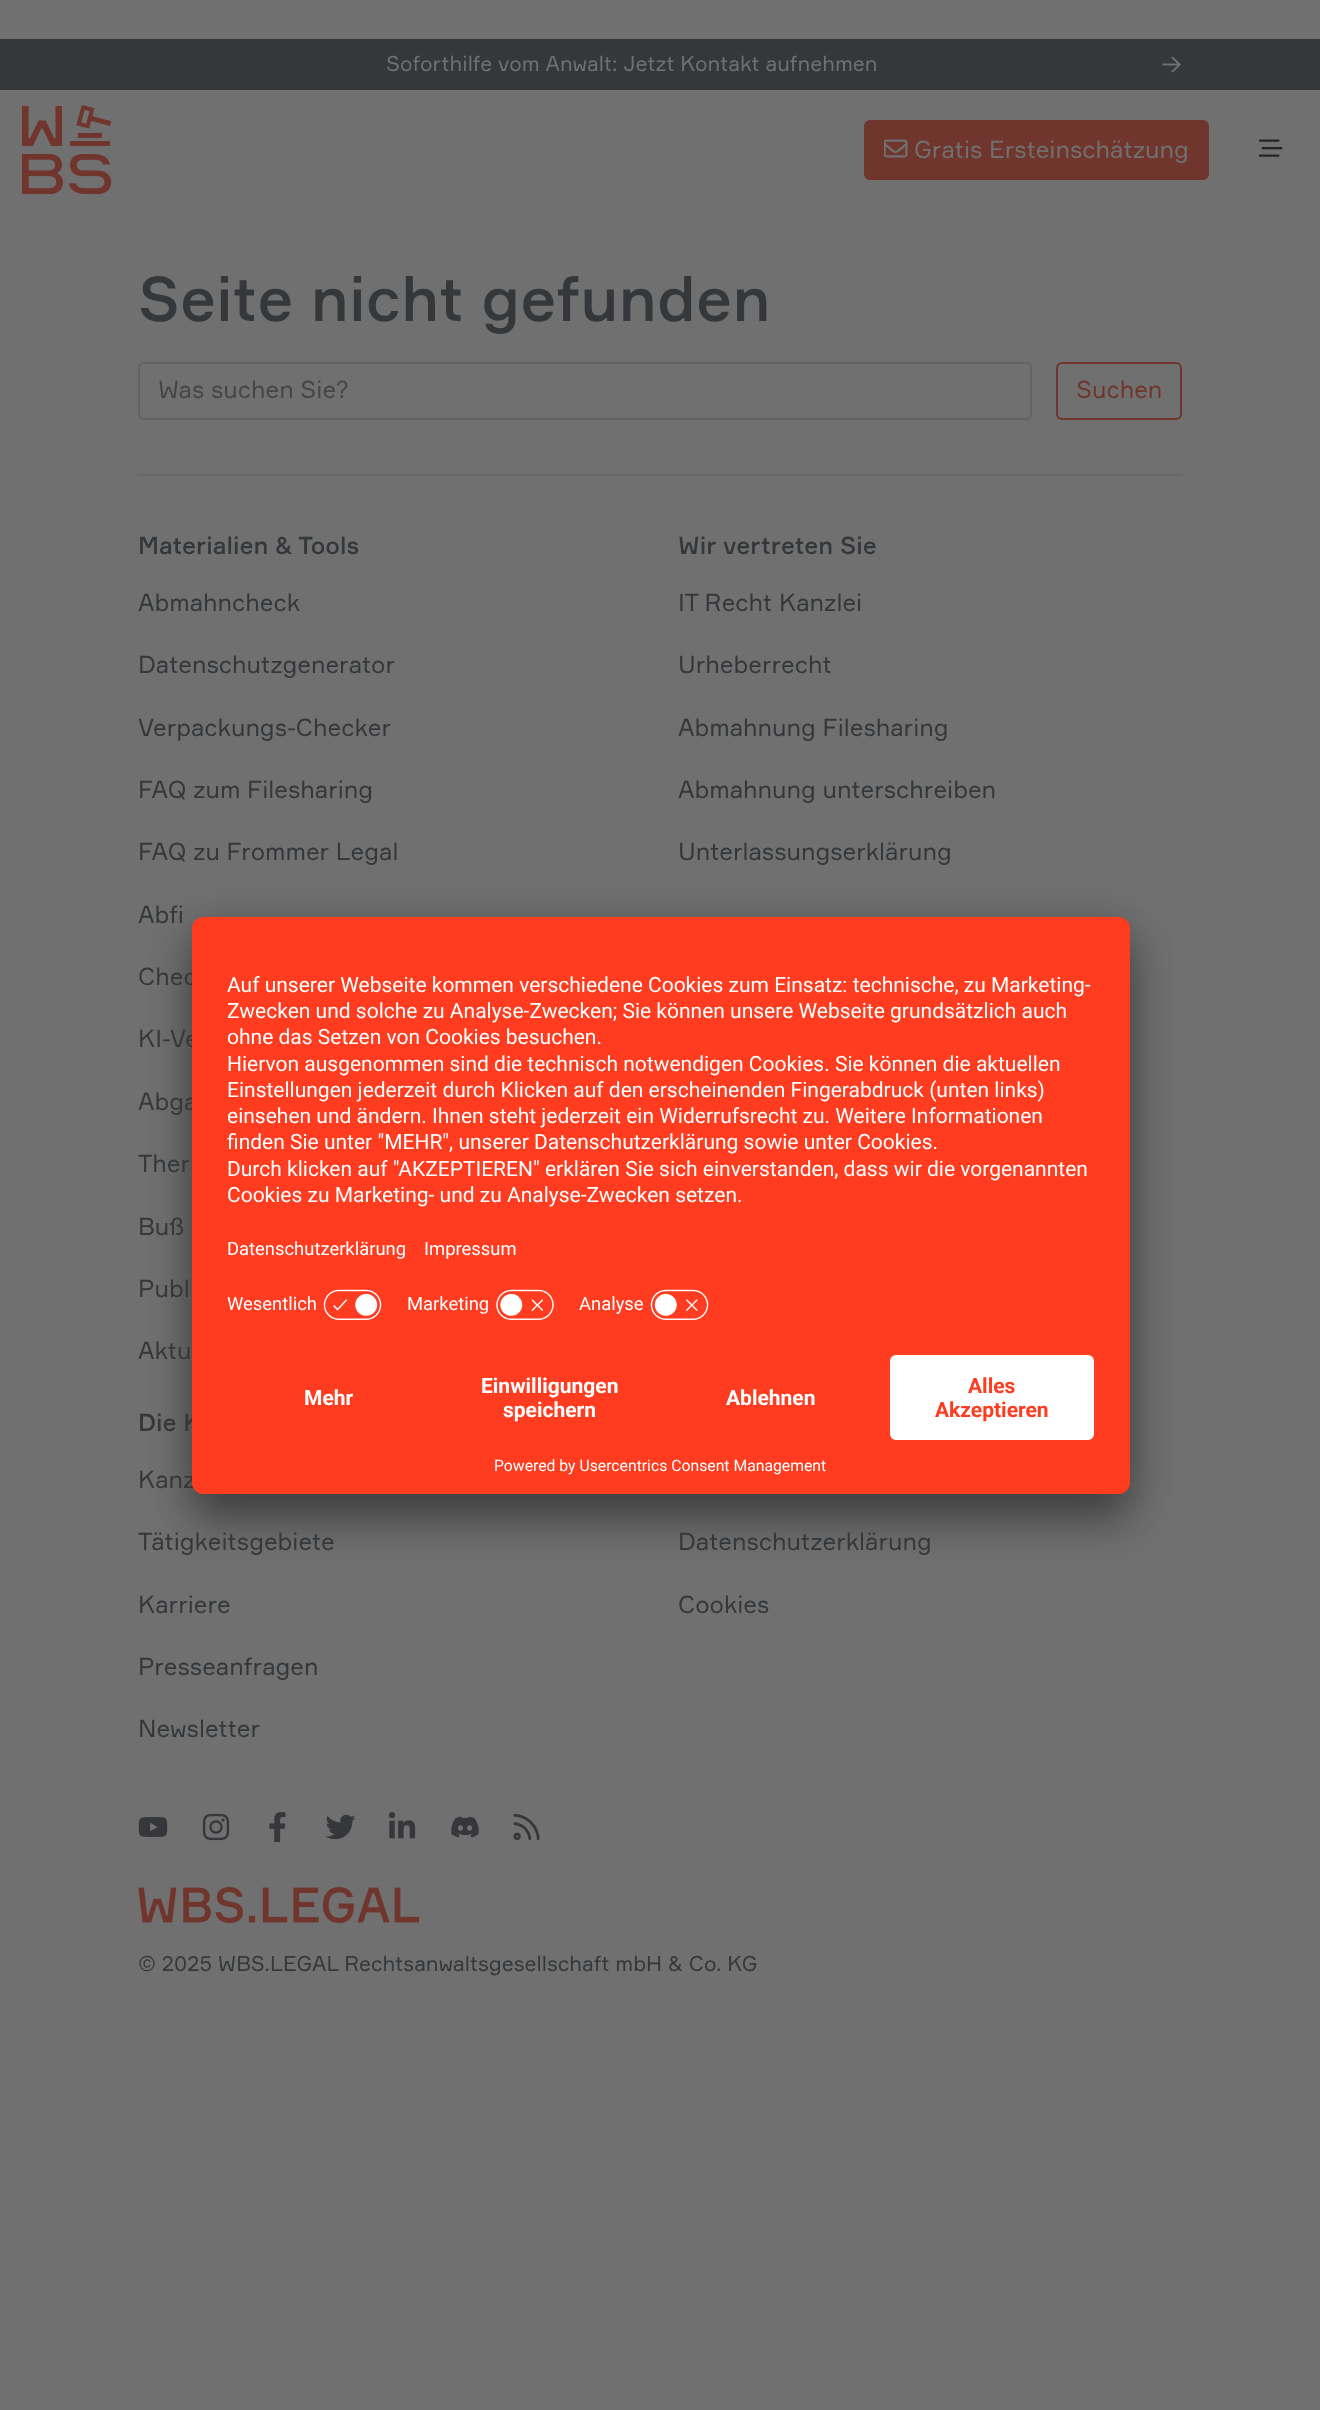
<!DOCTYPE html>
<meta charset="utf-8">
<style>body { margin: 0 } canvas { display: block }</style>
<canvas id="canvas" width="1320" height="2410"></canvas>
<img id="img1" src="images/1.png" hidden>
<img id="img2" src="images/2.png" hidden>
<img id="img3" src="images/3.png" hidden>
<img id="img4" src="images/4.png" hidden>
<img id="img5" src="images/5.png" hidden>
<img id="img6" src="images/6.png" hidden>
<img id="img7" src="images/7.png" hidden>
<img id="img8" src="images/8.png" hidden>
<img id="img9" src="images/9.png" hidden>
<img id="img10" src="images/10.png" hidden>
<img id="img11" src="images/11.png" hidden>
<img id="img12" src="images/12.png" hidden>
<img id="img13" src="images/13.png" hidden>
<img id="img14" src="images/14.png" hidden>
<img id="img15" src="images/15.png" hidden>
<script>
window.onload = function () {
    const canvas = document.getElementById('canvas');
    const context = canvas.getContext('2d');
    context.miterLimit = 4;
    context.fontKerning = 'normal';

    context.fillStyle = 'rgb(112, 112, 112)';
    context.fillRect(0, 0, 1320, 2410);
    context.fillStyle = 'rgb(53, 56, 59)';
    context.fillRect(0, 39, 1320, 51);
    context.drawImage(document.getElementById('img1'), 1162, 56, 19, 17);
    context.drawImage(document.getElementById('img2'), 22, 104, 90, 90);
    context.fillStyle = 'rgb(112, 54, 45)';
    context.beginPath();
    context.roundRect(864, 120, 345, 60, 6);
    context.fill();
    context.drawImage(document.getElementById('img3'), 884, 139, 24, 19);
    context.drawImage(document.getElementById('img4'), 1259, 139, 24, 18);
    context.beginPath();
    context.roundRect(139, 363, 892, 56, 5);
    context.strokeStyle = 'rgb(98, 99, 101)';
    context.lineWidth = 2;
    context.stroke();
    context.beginPath();
    context.roundRect(1057, 363, 124, 56, 5);
    context.strokeStyle = 'rgb(112, 54, 45)';
    context.stroke();
    context.fillStyle = 'rgb(102, 104, 105)';
    context.fillRect(138, 474, 1044, 2);
    context.drawImage(document.getElementById('img5'), 138, 1817, 30, 20);
    context.drawImage(document.getElementById('img6'), 202, 1813, 28, 28);
    context.drawImage(document.getElementById('img7'), 269, 1812, 17, 30);
    context.drawImage(document.getElementById('img8'), 326, 1814, 30, 26);
    context.drawImage(document.getElementById('img9'), 388, 1812, 28, 27);
    context.drawImage(document.getElementById('img10'), 451, 1816, 28, 22);
    context.drawImage(document.getElementById('img11'), 513, 1813, 27, 28);
    context.drawImage(document.getElementById('img12'), 138, 1887, 282, 36);
    context.fillStyle = 'rgba(0, 0, 0, 0.3)';
    context.filter = 'blur(21px)';
    context.beginPath();
    context.roundRect(192, 947, 938, 577, 12);
    context.fill();
    context.filter = 'none';
    context.fillStyle = 'rgba(0, 0, 0, 0.22)';
    context.filter = 'blur(19.5px)';
    context.beginPath();
    context.roundRect(192, 924, 938, 578, 12);
    context.fill();
    context.filter = 'none';
    context.font = '21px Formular';
    context.fillStyle = 'rgb(112, 112, 112)';
    context.fillText('Soforthilfe vom Anwalt: Jetzt Kontakt aufnehmen', 386, 71);
    context.font = '24px Formular';
    context.fillText('Gratis Ersteinschätzung', 914, 158);
    context.font = '500 62px Formular';
    context.fillStyle = 'rgb(53, 56, 59)';
    context.fillText('Seite nicht gefunden', 138, 321);
    context.font = '24px Formular';
    context.fillStyle = 'rgb(68, 71, 73)';
    context.fillText('Was suchen Sie?', 158, 398);
    context.fillStyle = 'rgb(112, 54, 45)';
    context.fillText('Suchen', 1076, 398);
    context.font = '500 24px Formular';
    context.fillStyle = 'rgb(53, 56, 59)';
    context.fillText('Materialien & Tools', 138, 554);
    context.font = '24px Formular';
    context.fillText('Abmahncheck', 138, 611);
    context.fillText('Datenschutzgenerator', 138, 673);
    context.fillText('Verpackungs-Checker', 138, 736);
    context.fillText('FAQ zum Filesharing', 138, 798);
    context.fillText('FAQ zu Frommer Legal', 138, 860);
    context.fillText('Abfi', 138, 923);
    context.fillText('Chec', 138, 985);
    context.fillText('KI-Ve', 138, 1047);
    context.fillText('Abga', 138, 1110);
    context.fillText('Ther', 138, 1172);
    context.fillText('Buß', 138, 1235);
    context.fillText('Publ', 138, 1297);
    context.fillText('Aktu', 138, 1359);
    context.font = '500 24px Formular';
    context.fillText('Wir vertreten Sie', 678, 554);
    context.font = '24px Formular';
    context.fillText('IT Recht Kanzlei', 678, 611);
    context.fillText('Urheberrecht', 678, 673);
    context.fillText('Abmahnung Filesharing', 678, 736);
    context.fillText('Abmahnung unterschreiben', 678, 798);
    context.fillText('Unterlassungserklärung', 678, 860);
    context.font = '500 24px Formular';
    context.fillText('Die K', 138, 1431);
    context.font = '24px Formular';
    context.fillText('Kanz', 138, 1488);
    context.fillText('Tätigkeitsgebiete', 138, 1550);
    context.fillText('Karriere', 138, 1613);
    context.fillText('Presseanfragen', 138, 1675);
    context.fillText('Newsletter', 138, 1737);
    context.fillText('Datenschutzerklärung', 678, 1550);
    context.fillText('Cookies', 678, 1613);
    context.font = '21px Formular';
    context.fillText('© 2025 WBS.LEGAL Rechtsanwaltsgesellschaft mbH & Co. KG', 138, 1971);
    context.fillStyle = 'rgb(255, 60, 31)';
    context.beginPath();
    context.roundRect(192, 917, 938, 577, 12);
    context.fill();
    context.save();
    context.beginPath();
    context.roundRect(192, 917, 938, 577, 12);
    context.clip();
    context.beginPath();
    context.roundRect(192, 917, 938, 426, [12, 12, 0, 0]);
    context.clip();
    context.fillRect(192, 918, 938, 425);
    context.fillRect(192, 918, 938, 365);
    context.restore();
    context.font = '21px Roboto';
    context.fillStyle = 'rgb(255, 255, 255)';
    context.fillText('Auf unserer Webseite kommen verschiedene Cookies zum Einsatz: technische, zu Marketing-', 227, 992);
    context.fillText('Zwecken und solche zu Analyse-Zwecken; Sie können unsere Webseite grundsätzlich auch', 227, 1018);
    context.fillText('ohne das Setzen von Cookies besuchen.', 227, 1044);
    context.fillText('Hiervon ausgenommen sind die technisch notwendigen Cookies. Sie können die aktuellen', 227, 1071);
    context.fillText('Einstellungen jederzeit durch Klicken auf den erscheinenden Fingerabdruck (unten links)', 227, 1097);
    context.fillText('einsehen und ändern. Ihnen steht jederzeit ein Widerrufsrecht zu. Weitere Informationen', 227, 1123);
    context.fillText('finden Sie unter "MEHR", unserer Datenschutzerklärung sowie unter Cookies.', 227, 1149);
    context.fillText('Durch klicken auf "AKZEPTIEREN" erklären Sie sich einverstanden, dass wir die vorgenannten', 227, 1176);
    context.fillText('Cookies zu Marketing- und zu Analyse-Zwecken setzen.', 227, 1202);
    context.font = '18.4px Roboto';
    context.fillText('Datenschutzerklärung', 227, 1255);
    context.fillText('Impressum', 424, 1255);
    context.fillText('Wesentlich', 227, 1310);
    context.drawImage(document.getElementById('img13'), 323, 1289, 59, 31);
    context.fillText('Marketing', 407, 1310);
    context.drawImage(document.getElementById('img14'), 496, 1289, 58, 31);
    context.fillText('Analyse', 579, 1310);
    context.drawImage(document.getElementById('img15'), 650, 1289, 59, 31);
    context.fillStyle = 'rgb(255, 60, 31)';
    context.beginPath();
    context.roundRect(192, 1343, 938, 151, [0, 0, 12, 12]);
    context.fill();
    context.font = 'bold 21px Roboto';
    context.fillStyle = 'rgb(255, 255, 255)';
    context.fillText('Mehr', 304, 1405);
    context.fillText('Einwilligungen', 481, 1393);
    context.fillText('speichern', 503, 1417);
    context.fillText('Ablehnen', 726, 1405);
    context.beginPath();
    context.roundRect(890, 1355, 204, 85, 6);
    context.fill();
    context.fillStyle = 'rgb(255, 60, 31)';
    context.fillText('Alles', 968, 1393);
    context.fillText('Akzeptieren', 935, 1417);
    context.font = '15.75px Roboto';
    context.fillStyle = 'rgb(255, 255, 255)';
    context.fillText('Powered by Usercentrics Consent Management', 494, 1471);
};
</script>
